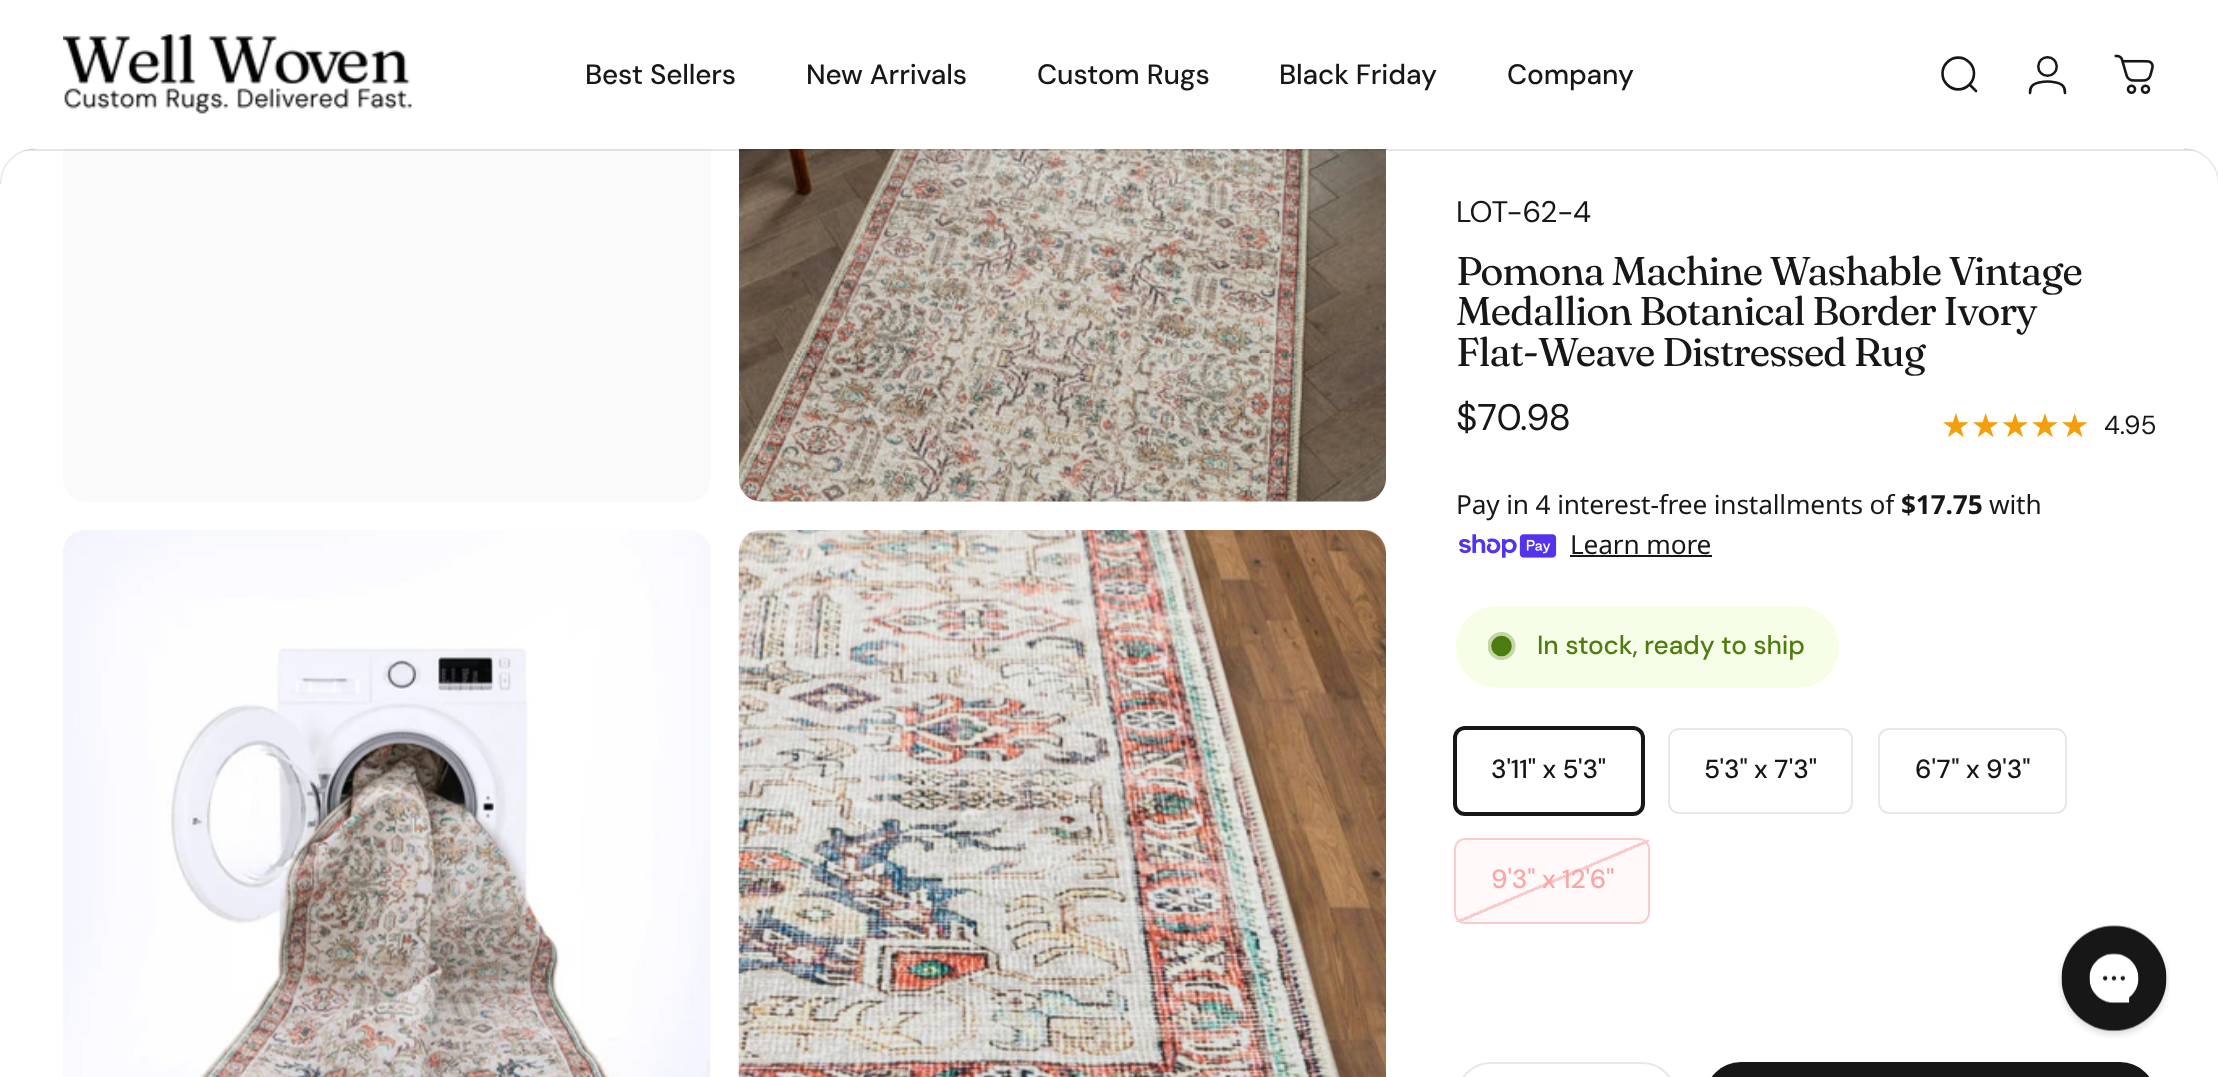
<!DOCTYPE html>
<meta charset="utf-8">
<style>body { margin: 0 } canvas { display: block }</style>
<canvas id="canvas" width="2218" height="1077"></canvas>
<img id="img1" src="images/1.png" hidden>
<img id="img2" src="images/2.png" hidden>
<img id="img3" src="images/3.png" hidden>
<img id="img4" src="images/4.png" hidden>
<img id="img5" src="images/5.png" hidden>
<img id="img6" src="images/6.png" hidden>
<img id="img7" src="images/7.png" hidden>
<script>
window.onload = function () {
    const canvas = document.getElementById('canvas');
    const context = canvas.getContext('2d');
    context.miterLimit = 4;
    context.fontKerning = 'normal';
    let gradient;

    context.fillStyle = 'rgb(255, 255, 255)';
    context.fillRect(0, 0, 2218, 1077);
    context.fillStyle = 'rgb(250, 250, 250)';
    context.beginPath();
    context.roundRect(63, -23, 648, 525, 23);
    context.fill();
    context.beginPath();
    context.roundRect(739, -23, 647, 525, 23);
    context.fill();
    context.fillStyle = 'rgb(255, 255, 255)';
    context.fillRect(29, 0, 2161, 149);
    context.drawImage(document.getElementById('img1'), 63, 34, 349, 80);
    context.beginPath();
    context.moveTo(1976, 91);
    context.lineTo(1969.5, 84.5);
    context.moveTo(1969.5, 84.5);
    context.bezierCurveTo(1975.5, 78.5, 1975.5, 68.5, 1969.5, 62.5);
    context.bezierCurveTo(1963, 56, 1953.5, 56, 1947, 62.5);
    context.bezierCurveTo(1941, 68.5, 1941, 78.5, 1947, 84.5);
    context.bezierCurveTo(1953.5, 91, 1963, 91, 1969.5, 84.5);
    context.closePath();
    context.strokeStyle = 'rgb(23, 23, 23)';
    context.lineWidth = 2.6;
    context.lineCap = 'round';
    context.stroke();
    context.beginPath();
    context.arc(2047.5, 66.5, 9.25, 0, 2 * Math.PI);
    context.lineWidth = 2.5;
    context.stroke();
    context.beginPath();
    context.moveTo(2047.5, 81.5);
    context.bezierCurveTo(2051.5, 81.5, 2060.5, 82.5, 2063, 86);
    context.bezierCurveTo(2065, 88, 2065, 90, 2065, 93);
    context.moveTo(2047.5, 81.5);
    context.bezierCurveTo(2043.5, 81.5, 2034.5, 82.5, 2032, 86);
    context.bezierCurveTo(2030, 88, 2030, 90, 2030, 93);
    context.lineWidth = 2.6;
    context.stroke();
    context.drawImage(document.getElementById('img2'), 2114, 54, 40, 40);
    context.drawImage(document.getElementById('img3'), 739, 149, 647, 353);
    context.fillStyle = 'rgba(23, 23, 23, 0.11)';
    context.fillRect(23, 149, 2173, 2);
    context.fillStyle = 'rgb(255, 255, 255)';
    context.beginPath();
    context.moveTo(35, 149);
    context.lineTo(0, 149);
    context.lineTo(0, 184);
    context.lineTo(0.5, 184);
    context.bezierCurveTo(0.5, 164.5, 16, 149, 35, 149);
    context.closePath();
    context.fill('evenodd');
    context.beginPath();
    context.moveTo(0.5, 184);
    context.bezierCurveTo(0.5, 164.5, 16, 149, 35, 149);
    context.strokeStyle = 'rgba(23, 23, 23, 0.11)';
    context.lineWidth = 1.3;
    context.lineCap = 'butt';
    context.stroke();
    context.beginPath();
    context.moveTo(2184, 149);
    context.lineTo(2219, 149);
    context.lineTo(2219, 184);
    context.lineTo(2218.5, 184);
    context.bezierCurveTo(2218.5, 164.5, 2203, 149, 2184, 149);
    context.closePath();
    context.fill('evenodd');
    context.beginPath();
    context.moveTo(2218.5, 184);
    context.bezierCurveTo(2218.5, 164.5, 2203, 149, 2184, 149);
    context.stroke();
    context.fillStyle = 'rgb(250, 250, 250)';
    context.beginPath();
    context.roundRect(63, 530, 648, 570, 23);
    context.fill();
    context.drawImage(document.getElementById('img4'), 63, 530, 647, 547);
    context.beginPath();
    context.roundRect(739, 530, 647, 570, 23);
    context.fill();
    context.drawImage(document.getElementById('img5'), 738, 530, 648, 547);
    context.drawImage(document.getElementById('img6'), 1459, 534, 98, 24);
    context.fillStyle = 'rgb(23, 23, 23)';
    context.fillRect(1570, 555, 142, 2);
    context.fillStyle = 'rgb(247, 254, 231)';
    context.beginPath();
    context.roundRect(1456, 606, 383, 82, 41);
    context.fill();
    context.fillStyle = 'rgb(77, 124, 15)';
    context.beginPath();
    context.arc(1501.5, 646, 9, 0, 2 * Math.PI);
    context.fill();
    context.strokeStyle = 'rgb(77, 124, 15)';
    context.lineWidth = 2.6;
    context.stroke();
    context.save();
    context.beginPath();
    context.rect(1488, 632, 28, 28);
    context.clip();
    context.beginPath();
    context.arc(1501.5, 646, 11.5, 0, 2 * Math.PI);
    context.strokeStyle = 'rgba(77, 124, 15, 0.3)';
    context.lineWidth = 5.2;
    context.stroke();
    context.restore();
    context.beginPath();
    context.roundRect(1455, 728, 188, 86, 10);
    context.strokeStyle = 'rgb(23, 23, 23)';
    context.lineWidth = 4;
    context.stroke();
    context.beginPath();
    context.roundRect(1669, 729, 183, 84, 10);
    context.strokeStyle = 'rgb(232, 232, 232)';
    context.lineWidth = 2;
    context.stroke();
    context.beginPath();
    context.roundRect(1879, 729, 187, 84, 10);
    context.stroke();
    gradient = context.createLinearGradient(1523, 812, 1582, 951);
    gradient.addColorStop(0.49, 'rgb(255, 255, 255)');
    gradient.addColorStop(0.49, 'rgb(254, 202, 202)');
    gradient.addColorStop(0.51, 'rgb(254, 202, 202)');
    gradient.addColorStop(0.51, 'rgb(255, 255, 255)');
    context.fillStyle = gradient;
    context.fillRect(1456, 840, 193, 82);
    context.fillStyle = 'rgba(254, 202, 202, 0.11)';
    context.beginPath();
    context.roundRect(1456, 840, 193, 82, 9);
    context.fill();
    context.beginPath();
    context.roundRect(1455, 839, 194, 84, 10);
    context.strokeStyle = 'rgb(254, 202, 202)';
    context.stroke();
    context.beginPath();
    context.roundRect(1457, 1063, 219, 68, 51.5);
    context.strokeStyle = 'rgb(232, 232, 232)';
    context.stroke();
    context.fillStyle = 'rgb(23, 23, 23)';
    context.beginPath();
    context.roundRect(1707, 1064, 447, 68, 50.5);
    context.fill();
    context.strokeStyle = 'rgb(23, 23, 23)';
    context.lineWidth = 4;
    context.stroke();
    context.drawImage(document.getElementById('img7'), 2058, 925, 112, 113);
    context.letterSpacing = '-0.15px';
    context.font = '500 28px DM Sans';
    context.fillText('Best Sellers', 585, 84);
    context.fillText('New Arrivals', 806, 84);
    context.fillText('Custom Rugs', 1037, 84);
    context.fillText('Black Friday', 1279, 84);
    context.fillText('Company', 1507, 84);
    context.font = '29.75px DM Sans';
    context.fillText('LOT-62-4', 1456, 222);
    context.letterSpacing = '-1.2px';
    context.font = '40.1px Fraunces';
    context.fillText('Pomona Machine Washable Vintage', 1456, 285);
    context.fillText('Medallion Botanical Border Ivory', 1456, 325);
    context.fillText('Flat-Weave Distressed Rug', 1456, 366);
    context.letterSpacing = '-0.15px';
    context.font = '37px DM Sans';
    context.fillText('$70.98', 1456, 430);
    context.font = '33.25px DejaVu Sans';
    gradient = context.createLinearGradient(1941, 426, 2090, 426);
    gradient.addColorStop(1, 'rgb(245, 158, 11)');
    gradient.addColorStop(1, 'rgb(220, 220, 220)');
    context.fillStyle = gradient;
    context.fillText('★★★★★', 1941, 437);
    context.font = '26.25px DM Sans';
    context.fillStyle = 'rgb(23, 23, 23)';
    context.fillText('4.95', 2104, 434);
    context.font = '26.25px Noto Sans';
    context.fillText('Pay in 4 interest-free installments of', 1456, 514);
    context.font = 'bold 26.25px Noto Sans';
    context.fillText('$17.75', 1901, 514);
    context.font = '26.25px Noto Sans';
    context.fillText('with', 1989, 514);
    context.fillText('Learn more', 1570, 554);
    context.font = '500 26.25px DM Sans';
    context.fillStyle = 'rgb(77, 124, 15)';
    context.fillText('In stock, ready to ship', 1537, 654);
    context.fillStyle = 'rgb(23, 23, 23)';
    context.fillText('3\'11" x 5\'3"', 1491, 778);
    context.fillText('5\'3" x 7\'3"', 1704, 778);
    context.fillText('6\'7" x 9\'3"', 1915, 778);
    context.fillStyle = 'rgb(252, 165, 165)';
    context.fillText('9\'3" x 12\'6"', 1491, 888);
};
</script>
